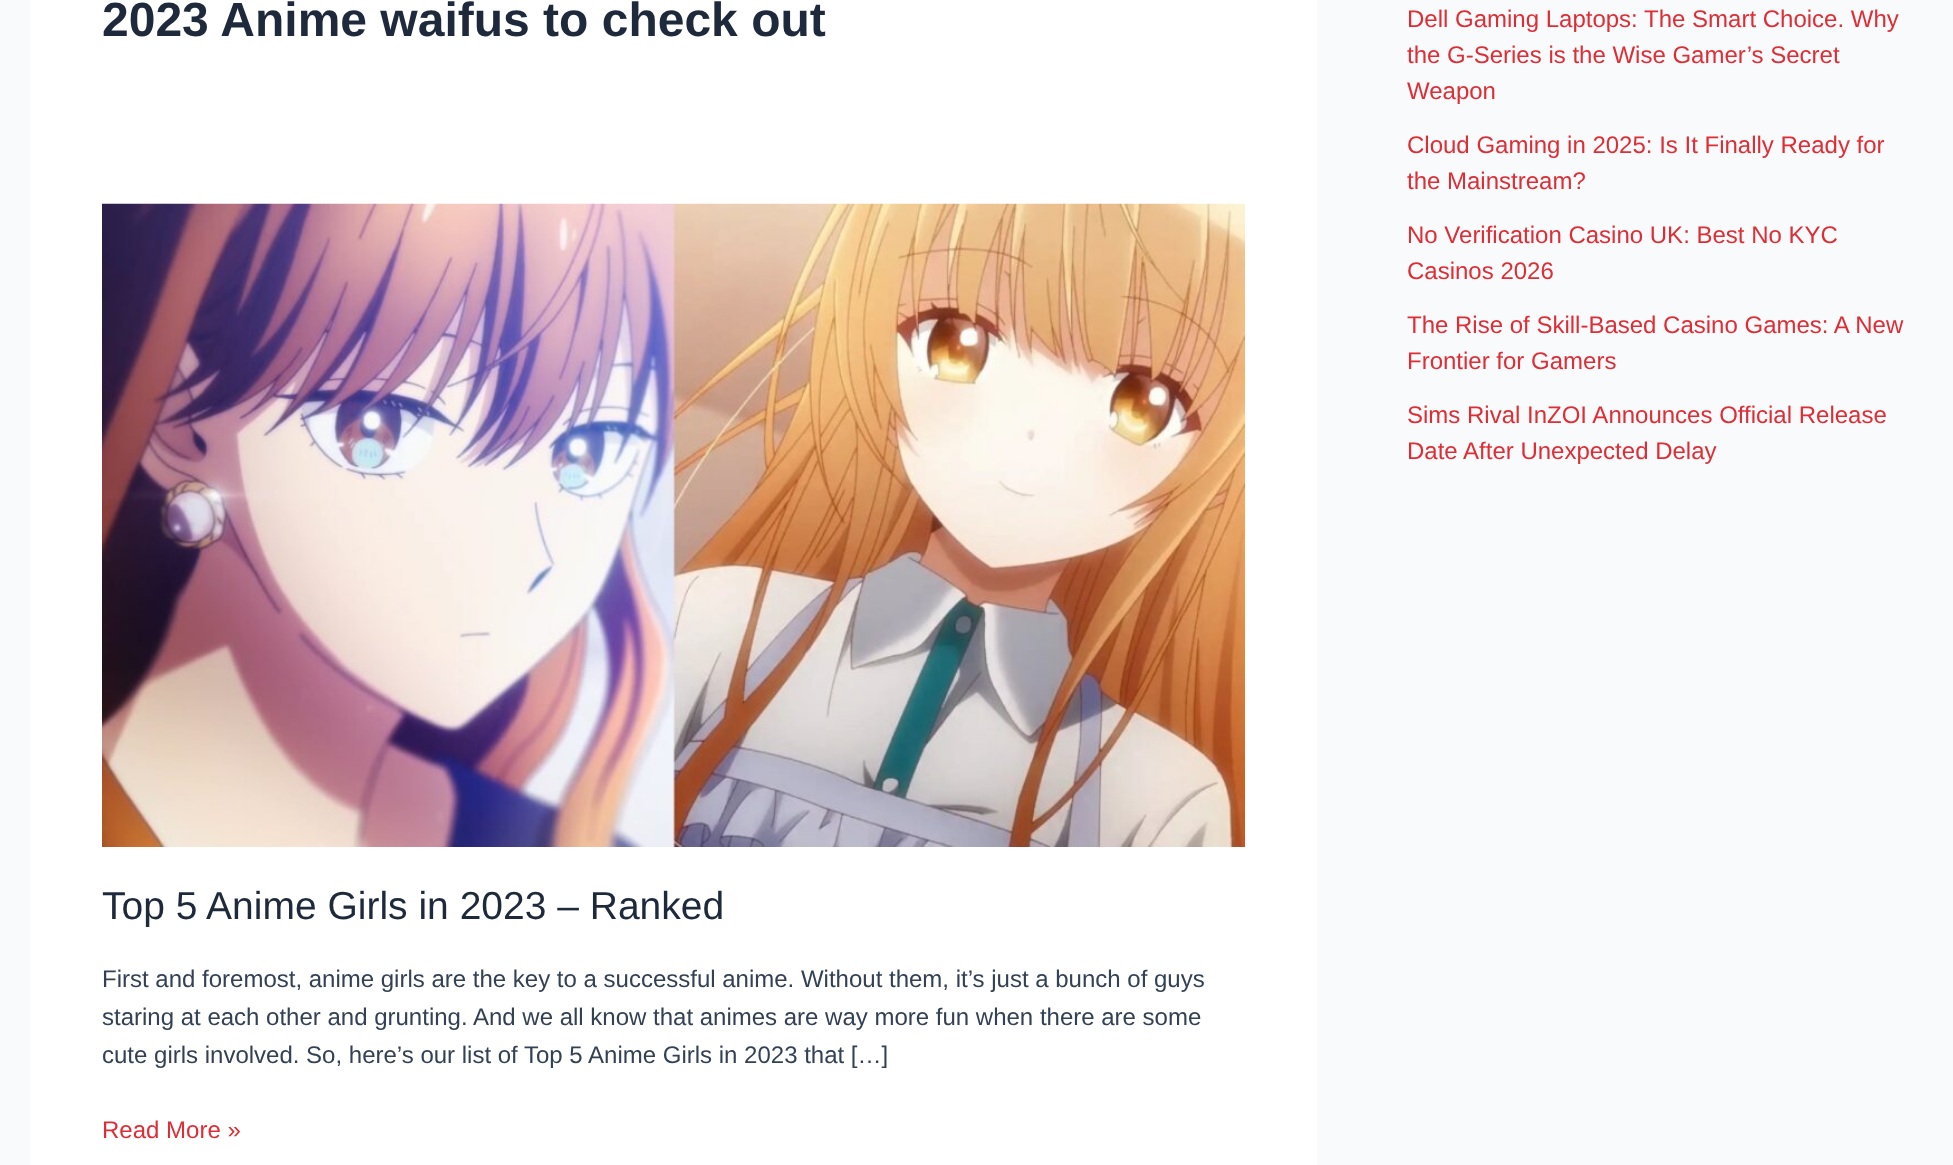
<!DOCTYPE html>
<meta charset="utf-8">
<style>body { margin: 0 } canvas { display: block }</style>
<canvas id="canvas" width="1953" height="1165"></canvas>
<img id="img1" src="images/1.png" hidden>
<script>
window.onload = function () {
    const canvas = document.getElementById('canvas');
    const context = canvas.getContext('2d');
    context.miterLimit = 4;
    context.fontKerning = 'normal';

    context.fillStyle = 'rgb(249, 250, 251)';
    context.fillRect(0, 0, 1953, 1165);
    context.fillStyle = 'rgb(255, 255, 255)';
    context.fillRect(30, 0, 1287, 1165);
    context.drawImage(document.getElementById('img1'), 102, 203, 1143, 644);
    context.font = 'bold 48px Liberation Sans';
    context.fillStyle = 'rgb(30, 41, 59)';
    context.fillText('2023 Anime waifus to check out', 102, 36);
    context.font = '39px Liberation Sans';
    context.fillText('Top 5 Anime Girls in 2023 – Ranked', 102, 919);
    context.font = '24px Liberation Sans';
    context.fillStyle = 'rgb(51, 65, 85)';
    context.fillText('First and foremost, anime girls are the key to a successful anime. Without them, it’s just a bunch of guys', 102, 987);
    context.fillText('staring at each other and grunting. And we all know that animes are way more fun when there are some', 102, 1025);
    context.fillText('cute girls involved. So, here’s our list of Top 5 Anime Girls in 2023 that […]', 102, 1063);
    context.fillStyle = 'rgb(222, 45, 53)';
    context.fillText('Read More »', 102, 1138);
    context.fillText('Dell Gaming Laptops: The Smart Choice. Why', 1407, 27);
    context.fillText('the G-Series is the Wise Gamer’s Secret', 1407, 63);
    context.fillText('Weapon', 1407, 99);
    context.fillText('Cloud Gaming in 2025: Is It Finally Ready for', 1407, 153);
    context.fillText('the Mainstream?', 1407, 189);
    context.fillText('No Verification Casino UK: Best No KYC', 1407, 243);
    context.fillText('Casinos 2026', 1407, 279);
    context.fillText('The Rise of Skill-Based Casino Games: A New', 1407, 333);
    context.fillText('Frontier for Gamers', 1407, 369);
    context.fillText('Sims Rival InZOI Announces Official Release', 1407, 423);
    context.fillText('Date After Unexpected Delay', 1407, 459);
};
</script>
